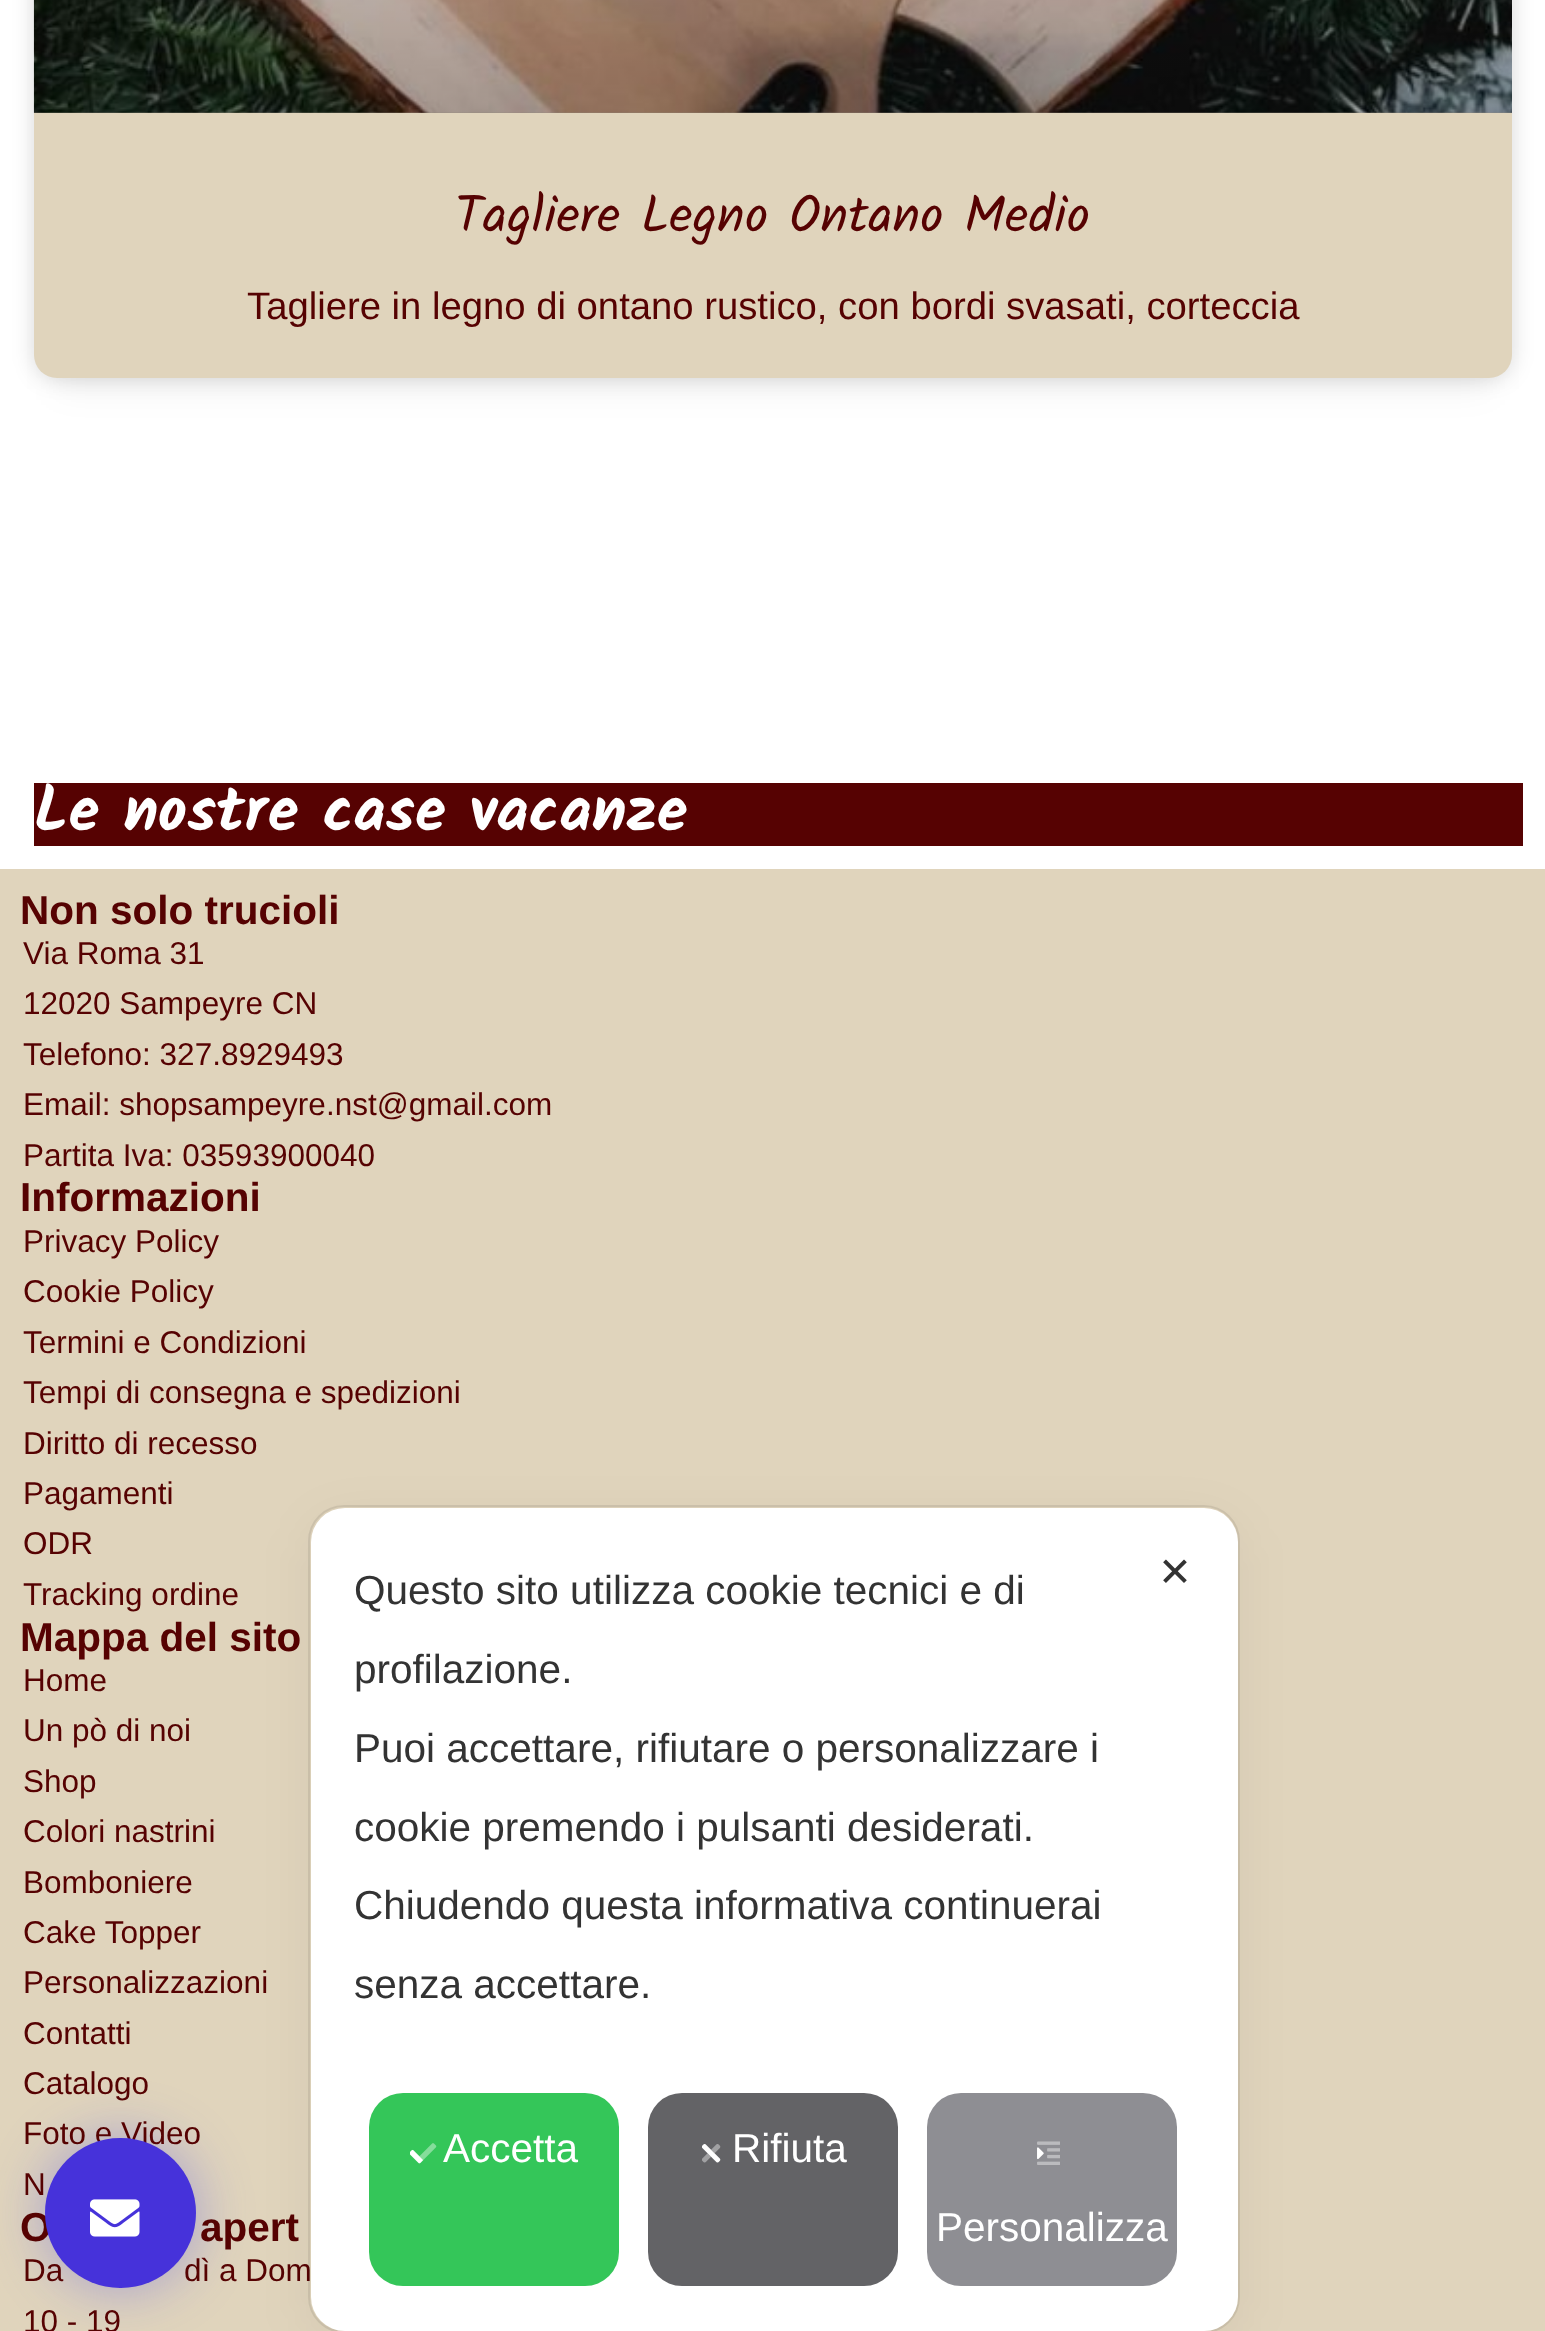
<!DOCTYPE html>
<meta charset="utf-8">
<style>body { margin: 0 } canvas { display: block }</style>
<canvas id="canvas" width="1545" height="2331"></canvas>
<img id="img1" src="images/1.png" hidden>
<img id="img2" src="images/2.png" hidden>
<img id="img3" src="images/3.png" hidden>
<img id="img4" src="images/4.png" hidden>
<img id="img5" src="images/5.png" hidden>
<script>
window.onload = function () {
    const canvas = document.getElementById('canvas');
    const context = canvas.getContext('2d');
    context.miterLimit = 4;
    context.fontKerning = 'normal';
    let gradient;

    context.fillStyle = 'rgb(255, 255, 255)';
    context.fillRect(0, 0, 1545, 2331);
    context.fillStyle = 'rgba(0, 0, 0, 0.05)';
    context.filter = 'blur(17px)';
    context.beginPath();
    context.rect(56, -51, 1434, 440);
    context.fill();
    context.filter = 'none';
    context.fillStyle = 'rgba(0, 0, 0, 0.15)';
    context.filter = 'blur(11px)';
    context.beginPath();
    context.roundRect(34, -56, 1478, 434, 23);
    context.fill();
    context.filter = 'none';
    context.fillStyle = 'rgb(224, 212, 188)';
    context.beginPath();
    context.roundRect(34, -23, 1478, 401, 23);
    context.fill();
    context.drawImage(document.getElementById('img1'), 33, 0, 1479, 113);
    gradient = context.createLinearGradient(773, 113, 773, -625);
    gradient.addColorStop(0, 'rgba(0, 0, 0, 0.35)');
    gradient.addColorStop(0.75, 'rgba(0, 0, 0, 0)');
    context.fillStyle = gradient;
    context.fillRect(34, 0, 1478, 113);
    context.fillStyle = 'rgb(86, 2, 2)';
    context.fillRect(34, 783, 1489, 63);
    context.fillStyle = 'rgb(224, 212, 188)';
    context.fillRect(0, 869, 1545, 1462);
    context.fillStyle = 'rgba(53, 56, 240, 0.35)';
    context.filter = 'blur(28px)';
    context.beginPath();
    context.roundRect(45, 2138, 151, 150, 75);
    context.fill();
    context.filter = 'none';
    context.font = '51.75px Kalam';
    context.fillStyle = 'rgb(86, 2, 2)';
    context.fillText('Tagliere Legno Ontano Medio', 455, 232);
    context.font = '38.25px Liberation Sans';
    context.fillText('Tagliere in legno di ontano rustico, con bordi svasati, corteccia', 247, 319);
    context.font = 'bold 63px Kalam';
    context.fillStyle = 'rgb(255, 255, 255)';
    context.fillText('Le nostre case vacanze', 34, 831);
    context.font = 'bold 40.5px Liberation Sans';
    context.fillStyle = 'rgb(86, 2, 2)';
    context.fillText('Non solo trucioli', 20, 924);
    context.font = '31.5px Liberation Sans';
    context.fillText('Via Roma 31', 23, 964);
    context.fillText('12020 Sampeyre CN', 23, 1014);
    context.fillText('Telefono: 327.8929493', 23, 1065);
    context.fillText('Email: shopsampeyre.nst@gmail.com', 23, 1115);
    context.fillText('Partita Iva: 03593900040', 23, 1166);
    context.font = 'bold 40.5px Liberation Sans';
    context.fillText('Informazioni', 20, 1211);
    context.font = '31.5px Liberation Sans';
    context.fillText('Privacy Policy', 23, 1252);
    context.fillText('Cookie Policy', 23, 1302);
    context.fillText('Termini e Condizioni', 23, 1353);
    context.fillText('Tempi di consegna e spedizioni', 23, 1403);
    context.fillText('Diritto di recesso', 23, 1454);
    context.fillText('Pagamenti', 23, 1504);
    context.fillText('ODR', 23, 1554);
    context.fillText('Tracking ordine', 23, 1605);
    context.font = 'bold 40.5px Liberation Sans';
    context.fillText('Mappa del sito', 20, 1651);
    context.font = '31.5px Liberation Sans';
    context.fillText('Home', 23, 1691);
    context.fillText('Un pò di noi', 23, 1741);
    context.fillText('Shop', 23, 1792);
    context.fillText('Colori nastrini', 23, 1842);
    context.fillText('Bomboniere', 23, 1893);
    context.fillText('Cake Topper', 23, 1943);
    context.fillText('Personalizzazioni', 23, 1993);
    context.fillText('Contatti', 23, 2044);
    context.fillText('Catalogo', 23, 2094);
    context.fillText('Foto e Video', 23, 2144);
    context.fillText('N', 23, 2195);
    context.font = 'bold 40.5px Liberation Sans';
    context.fillText('O', 20, 2241);
    context.fillText('apert', 200, 2241);
    context.font = '31.5px Liberation Sans';
    context.fillText('Da', 23, 2281);
    context.fillText('dì a Dom', 184, 2281);
    context.fillStyle = 'rgb(70, 50, 218)';
    context.beginPath();
    context.roundRect(45, 2138, 151, 150, 75);
    context.fill();
    context.drawImage(document.getElementById('img2'), 90, 2199, 50, 38);
    context.fillStyle = 'rgb(86, 2, 2)';
    context.fillText('10 - 19', 23, 2332);
    context.beginPath();
    context.roundRect(309, 1506, 930, 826, 35);
    context.strokeStyle = 'rgba(0, 0, 0, 0.08)';
    context.lineWidth = 2;
    context.stroke();
    context.fillStyle = 'rgba(0, 0, 0, 0.05)';
    context.filter = 'blur(27px)';
    context.beginPath();
    context.roundRect(311, 1521, 927, 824, 34);
    context.fill();
    context.filter = 'none';
    context.fillStyle = 'rgb(255, 255, 255)';
    context.beginPath();
    context.roundRect(311, 1508, 927, 823, 34);
    context.fill();
    context.font = '40.5px DejaVu Sans';
    context.fillStyle = 'rgb(51, 51, 51)';
    context.fillText('✕', 1158, 1586);
    context.font = '40.5px Liberation Sans';
    context.fillText('Questo sito utilizza cookie tecnici e di', 354, 1604);
    context.fillText('profilazione.', 354, 1683);
    context.fillText('Puoi accettare, rifiutare o personalizzare i', 354, 1762);
    context.fillText('cookie premendo i pulsanti desiderati.', 354, 1841);
    context.fillText('Chiudendo questa informativa continuerai', 354, 1919);
    context.fillText('senza accettare.', 354, 1998);
    context.fillStyle = 'rgb(52, 198, 89)';
    context.beginPath();
    context.roundRect(369, 2093, 250, 193, 34);
    context.fill();
    context.drawImage(document.getElementById('img3'), 410, 2143, 27, 21);
    context.fillStyle = 'rgb(255, 255, 255)';
    context.fillText('Accetta', 443, 2162);
    context.fillStyle = 'rgb(99, 99, 102)';
    context.beginPath();
    context.roundRect(648, 2093, 250, 193, 34);
    context.fill();
    context.drawImage(document.getElementById('img4'), 702, 2144, 19, 19);
    context.fillStyle = 'rgb(255, 255, 255)';
    context.fillText('Rifiuta', 732, 2162);
    context.fillStyle = 'rgb(142, 142, 147)';
    context.beginPath();
    context.roundRect(927, 2093, 250, 193, 34);
    context.fill();
    context.drawImage(document.getElementById('img5'), 1037, 2141, 23, 24);
    context.fillStyle = 'rgb(255, 255, 255)';
    context.fillText('Personalizza', 936, 2241);
};
</script>
